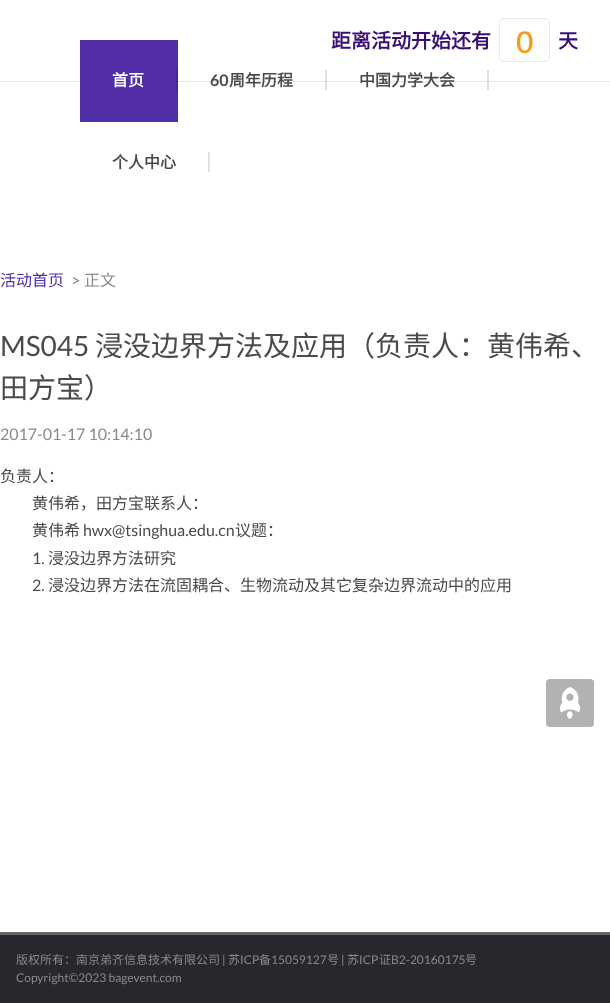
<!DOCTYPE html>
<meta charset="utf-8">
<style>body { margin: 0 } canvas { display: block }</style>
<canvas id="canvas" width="610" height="1003"></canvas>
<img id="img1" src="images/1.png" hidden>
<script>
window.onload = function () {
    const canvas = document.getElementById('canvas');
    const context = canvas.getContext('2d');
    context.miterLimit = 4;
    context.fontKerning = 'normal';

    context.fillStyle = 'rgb(255, 255, 255)';
    context.fillRect(0, 0, 610, 1003);
    context.fillStyle = 'rgb(224, 224, 224)';
    context.fillRect(487, 70, 2, 20);
    context.fillRect(325, 70, 2, 20);
    context.beginPath();
    context.roundRect(499.5, 18.5, 50, 43, 4.5);
    context.strokeStyle = 'rgb(235, 235, 235)';
    context.stroke();
    context.fillStyle = 'rgb(230, 230, 230)';
    context.fillRect(0, 81, 610, 1);
    context.fillStyle = 'rgb(202, 202, 202)';
    context.fillRect(487, 81, 2, 1);
    context.fillRect(325, 81, 2, 1);
    context.fillStyle = 'rgb(81, 45, 168)';
    context.fillRect(80, 40, 98, 82);
    context.fillStyle = 'rgb(71, 40, 148)';
    context.fillRect(176, 70, 2, 20);
    context.fillStyle = 'rgb(224, 224, 224)';
    context.fillRect(208, 152, 2, 20);
    context.drawImage(document.getElementById('img1'), 546, 679, 48, 48);
    context.fillStyle = 'rgb(102, 102, 102)';
    context.fillRect(0, 932, 610, 3);
    context.fillStyle = 'rgb(39, 40, 45)';
    context.fillRect(0, 935, 610, 68);
    context.font = 'bold 20px Noto Sans CJK SC';
    context.fillStyle = 'rgb(57, 13, 116)';
    context.fillText('距离活动开始还有', 331, 48);
    context.font = '600 30px Lato';
    context.fillStyle = 'rgb(247, 155, 33)';
    context.fillText('0', 516, 53);
    context.font = 'bold 20px Noto Sans CJK SC';
    context.fillStyle = 'rgb(57, 13, 116)';
    context.fillText('天', 558, 48);
    context.font = 'bold 16px Noto Sans CJK SC';
    context.fillStyle = 'rgb(255, 255, 255)';
    context.fillText('首页', 112, 86);
    context.font = 'bold 16px Lato';
    context.fillStyle = 'rgb(74, 74, 74)';
    context.fillText('60', 210, 86);
    context.font = 'bold 16px Noto Sans CJK SC';
    context.fillText('周年历程', 229, 86);
    context.fillText('中国力学大会', 359, 86);
    context.fillText('个人中心', 112, 168);
    context.font = '16px Noto Sans CJK SC';
    context.fillStyle = 'rgb(81, 45, 168)';
    context.fillText('活动首页', 0, 286);
    context.font = '16px Lato';
    context.fillStyle = 'rgb(137, 137, 137)';
    context.fillText('>', 71, 286);
    context.font = '16px Noto Sans CJK SC';
    context.fillText('正文', 84, 286);
    context.font = '28px Lato';
    context.fillStyle = 'rgb(74, 74, 74)';
    context.fillText('MS045', 0, 356);
    context.font = '28px Noto Sans CJK SC';
    context.fillText('浸没边界方法及应用（负责人：黄伟希、', 95, 356);
    context.fillText('田方宝）', 0, 398);
    context.font = '16px Lato';
    context.fillStyle = 'rgb(137, 137, 137)';
    context.fillText('2017-01-17 10:14:10', 0, 440);
    context.font = '16px Noto Sans CJK SC';
    context.fillStyle = 'rgb(74, 74, 74)';
    context.fillText('负责人：', 0, 482);
    context.fillText('黄伟希，田方宝联系人：', 32, 509);
    context.fillText('黄伟希', 32, 536);
    context.font = '16px Lato';
    context.fillText('hwx@tsinghua.edu.cn', 83, 536);
    context.font = '16px Noto Sans CJK SC';
    context.fillText('议题：', 235, 536);
    context.font = '16px Lato';
    context.fillText('1.', 32, 564);
    context.font = '16px Noto Sans CJK SC';
    context.fillText('浸没边界方法研究', 48, 564);
    context.font = '16px Lato';
    context.fillText('2.', 32, 591);
    context.font = '16px Noto Sans CJK SC';
    context.fillText('浸没边界方法在流固耦合、生物流动及其它复杂边界流动中的应用', 48, 591);
    context.font = '12px Noto Sans CJK SC';
    context.fillStyle = 'rgb(137, 137, 137)';
    context.fillText('版权所有：南京弟齐信息技术有限公司', 16, 964);
    context.font = '12px Lato';
    context.fillText('|', 222, 964);
    context.font = '12px Noto Sans CJK SC';
    context.fillText('苏', 228, 964);
    context.font = '12px Lato';
    context.fillText('ICP', 240, 964);
    context.font = '12px Noto Sans CJK SC';
    context.fillText('备', 259, 964);
    context.font = '12px Lato';
    context.fillText('15059127', 271, 964);
    context.font = '12px Noto Sans CJK SC';
    context.fillText('号', 327, 964);
    context.font = '12px Lato';
    context.fillText('|', 341, 964);
    context.font = '12px Noto Sans CJK SC';
    context.fillText('苏', 347, 964);
    context.font = '12px Lato';
    context.fillText('ICP', 359, 964);
    context.font = '12px Noto Sans CJK SC';
    context.fillText('证', 379, 964);
    context.font = '12px Lato';
    context.fillText('B2-20160175', 391, 964);
    context.font = '12px Noto Sans CJK SC';
    context.fillText('号', 465, 964);
    context.font = '12px Lato';
    context.fillText('Copyright©2023 bagevent.com', 16, 982);
};
</script>
